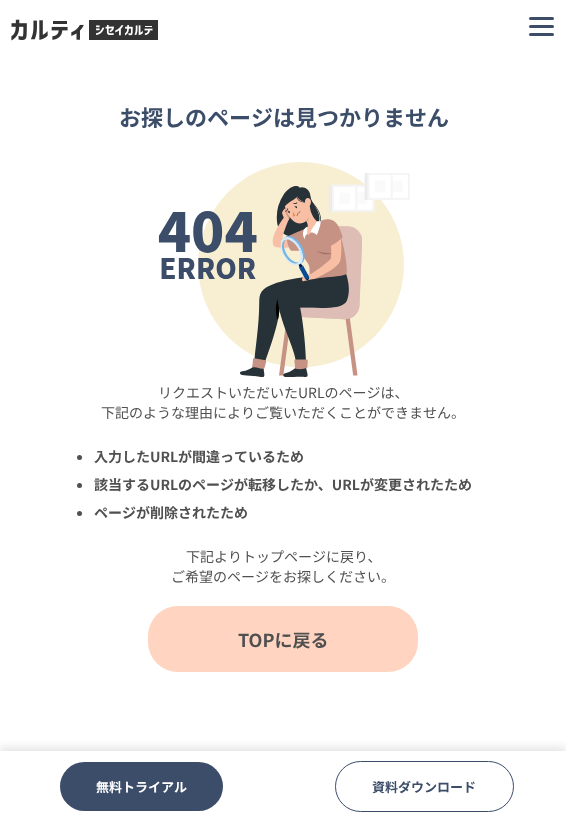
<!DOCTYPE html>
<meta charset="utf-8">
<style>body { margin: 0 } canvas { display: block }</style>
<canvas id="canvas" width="566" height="821"></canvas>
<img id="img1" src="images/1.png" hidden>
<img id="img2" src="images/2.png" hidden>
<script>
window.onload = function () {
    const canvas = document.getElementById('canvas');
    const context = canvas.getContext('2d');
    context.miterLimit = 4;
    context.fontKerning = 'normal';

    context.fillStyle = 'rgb(255, 255, 255)';
    context.fillRect(0, 0, 566, 821);
    context.drawImage(document.getElementById('img1'), 11, 19, 147, 22);
    context.fillStyle = 'rgb(60, 77, 105)';
    context.beginPath();
    context.roundRect(529, 17, 25, 3, 1.5);
    context.fill();
    context.beginPath();
    context.roundRect(529, 25, 25, 3, 1.5);
    context.fill();
    context.beginPath();
    context.roundRect(529, 33, 25, 3, 1.5);
    context.fill();
    context.drawImage(document.getElementById('img2'), 158, 162, 252, 215);
    context.fillStyle = 'rgb(80, 80, 80)';
    context.beginPath();
    context.arc(79.5, 457.5, 2.5, 0, 2 * Math.PI);
    context.fill();
    context.beginPath();
    context.arc(79.5, 485.5, 2.5, 0, 2 * Math.PI);
    context.fill();
    context.beginPath();
    context.arc(79.5, 513.5, 2.5, 0, 2 * Math.PI);
    context.fill();
    context.fillStyle = 'rgb(255, 213, 193)';
    context.beginPath();
    context.roundRect(148, 606, 270, 66, 30);
    context.fill();
    context.fillStyle = 'rgba(0, 0, 0, 0.1)';
    context.filter = 'blur(4px)';
    context.beginPath();
    context.rect(0, 747, 566, 70);
    context.fill();
    context.filter = 'none';
    context.fillStyle = 'rgb(255, 255, 255)';
    context.fillRect(0, 751, 566, 70);
    context.fillStyle = 'rgb(60, 77, 105)';
    context.beginPath();
    context.roundRect(60, 762, 163, 49, 24.5);
    context.fill();
    context.beginPath();
    context.roundRect(335.5, 761.5, 178, 50, 25);
    context.strokeStyle = 'rgb(60, 77, 105)';
    context.stroke();
    context.font = 'bold 22px Noto Sans JP';
    context.fillText('お探しのページは見つかりません', 119, 126);
    context.font = '14px Noto Sans JP';
    context.fillStyle = 'rgb(80, 80, 80)';
    context.fillText('リクエストいただいたURLのページは、', 158, 398);
    context.fillText('下記のような理由によりご覧いただくことができません。', 101, 418);
    context.font = 'bold 14px Noto Sans JP';
    context.fillText('入力したURLが間違っているため', 94, 462);
    context.fillText('該当するURLのページが転移したか、URLが変更されたため', 94, 490);
    context.fillText('ページが削除されたため', 94, 518);
    context.font = '14px Noto Sans JP';
    context.fillText('下記よりトップページに戻り、', 186, 562);
    context.fillText('ご希望のページをお探しください。', 171, 582);
    context.font = 'bold 18px Noto Sans JP';
    context.fillText('TOPに戻る', 238, 647);
    context.font = 'bold 13px Noto Sans JP';
    context.fillStyle = 'rgb(255, 255, 255)';
    context.fillText('無料トライアル', 96, 792);
    context.fillStyle = 'rgb(60, 77, 105)';
    context.fillText('資料ダウンロード', 372, 792);
};
</script>
